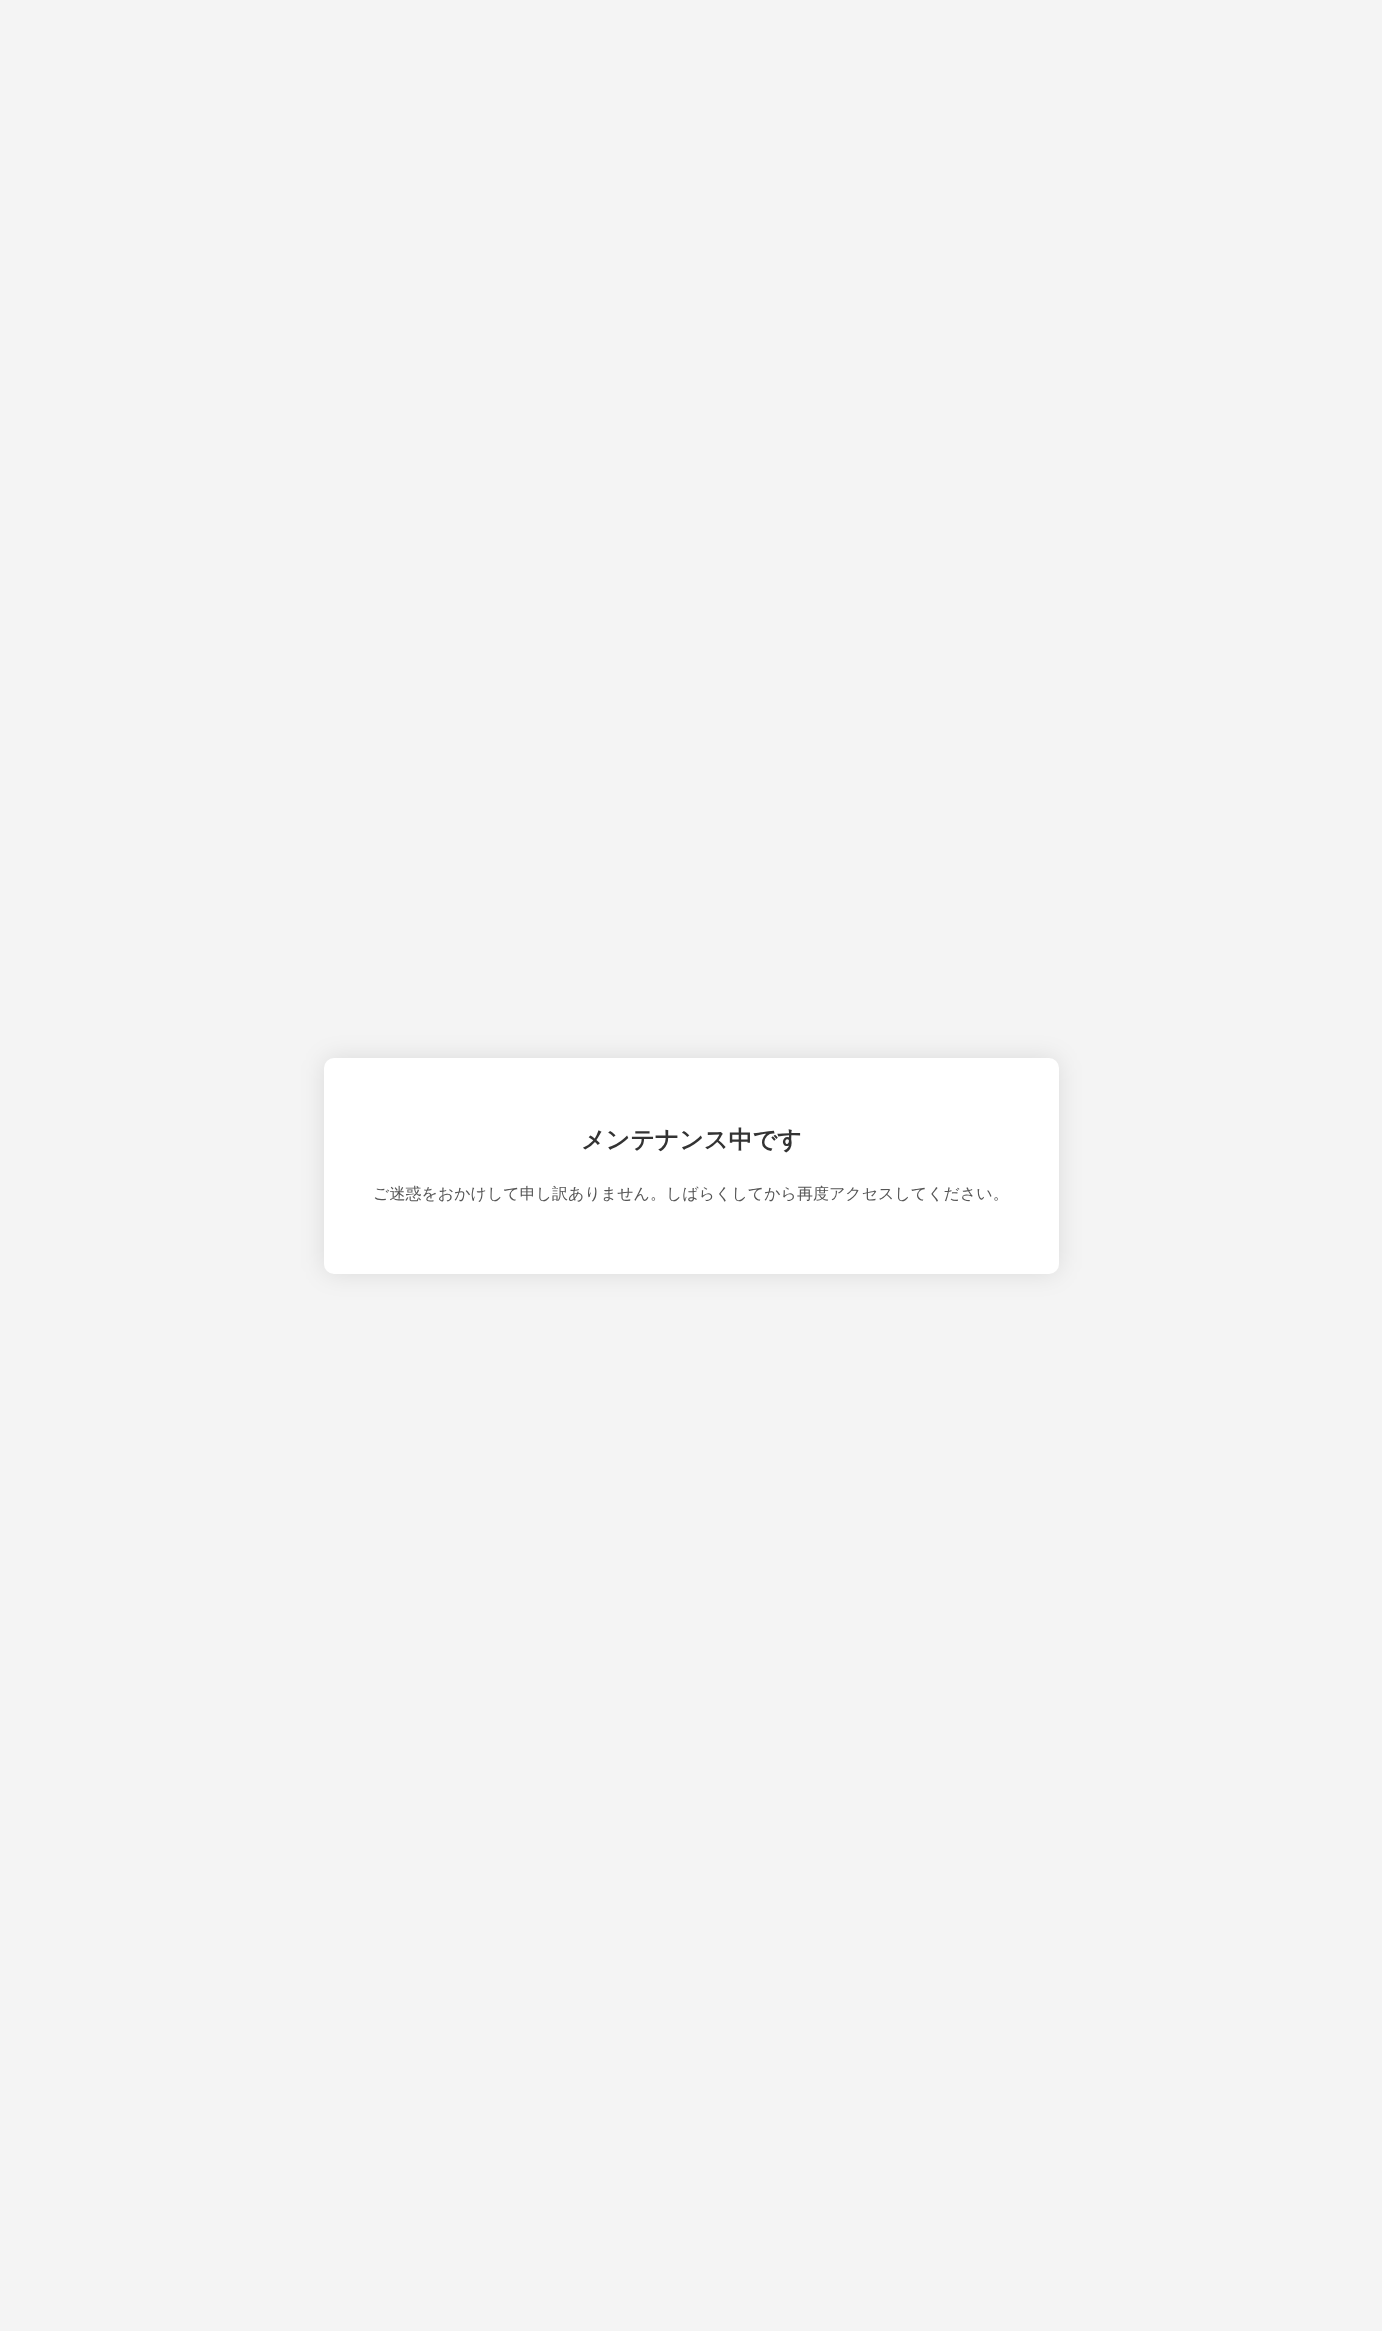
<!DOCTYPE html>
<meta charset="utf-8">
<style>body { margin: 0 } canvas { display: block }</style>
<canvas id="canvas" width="1382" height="2331"></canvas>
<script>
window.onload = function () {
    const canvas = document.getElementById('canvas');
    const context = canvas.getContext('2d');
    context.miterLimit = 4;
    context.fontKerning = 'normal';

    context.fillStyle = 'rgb(244, 244, 244)';
    context.fillRect(0, 0, 1382, 2331);
    context.fillStyle = 'rgba(0, 0, 0, 0.1)';
    context.filter = 'blur(12.5px)';
    context.beginPath();
    context.roundRect(324, 1058, 735, 216, 10);
    context.fill();
    context.filter = 'none';
    context.fillStyle = 'rgb(255, 255, 255)';
    context.beginPath();
    context.roundRect(324, 1058, 735, 216, 10);
    context.fill();
    context.font = 'bold 24px WenQuanYi Zen Hei';
    context.fillStyle = 'rgb(51, 51, 51)';
    context.fillText('メンテナンス中です', 581, 1148);
    context.font = '500 16px WenQuanYi Zen Hei';
    context.fillStyle = 'rgb(85, 85, 85)';
    context.fillText('ご迷惑をおかけして申し訳ありません。しばらくしてから再度アクセスしてください。', 373, 1199);
};
</script>
